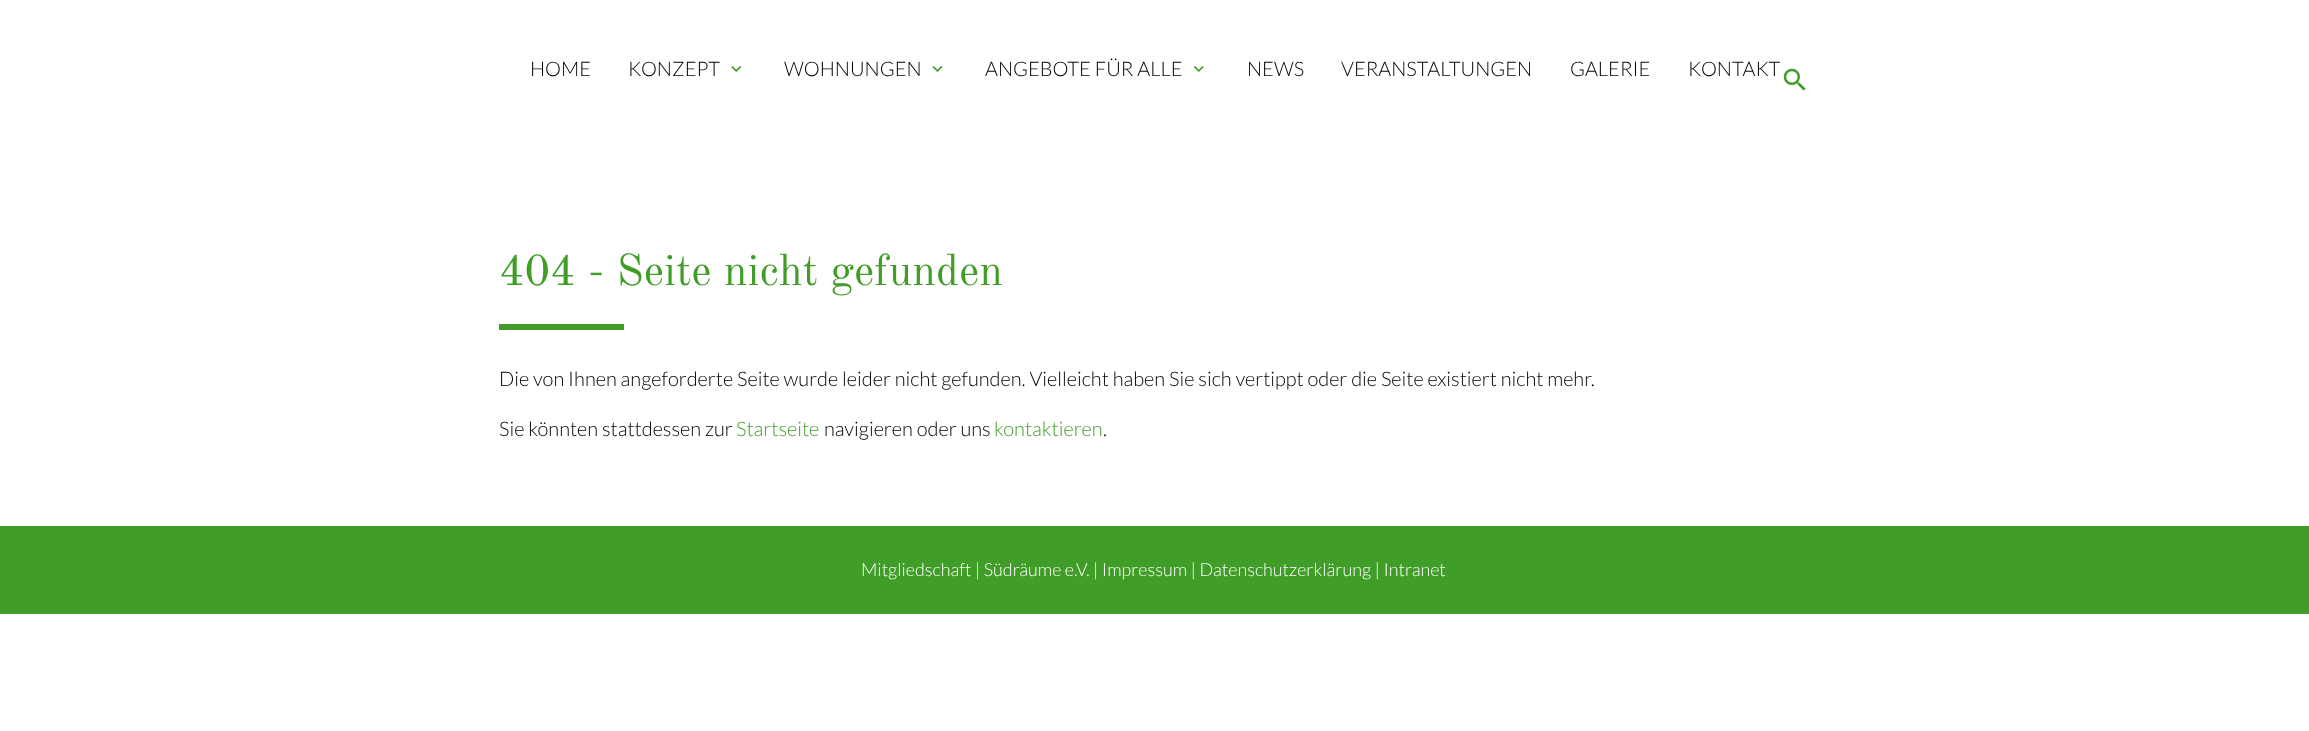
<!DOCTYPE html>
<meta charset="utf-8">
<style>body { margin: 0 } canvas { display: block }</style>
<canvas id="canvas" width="2309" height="731"></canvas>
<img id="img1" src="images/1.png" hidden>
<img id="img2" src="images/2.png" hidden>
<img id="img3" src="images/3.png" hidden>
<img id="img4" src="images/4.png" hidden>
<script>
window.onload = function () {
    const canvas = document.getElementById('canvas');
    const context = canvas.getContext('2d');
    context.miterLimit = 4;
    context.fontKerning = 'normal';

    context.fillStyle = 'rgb(255, 255, 255)';
    context.fillRect(0, 0, 2309, 731);
    context.drawImage(document.getElementById('img1'), 731, 66, 11, 6);
    context.drawImage(document.getElementById('img2'), 932, 66, 11, 6);
    context.drawImage(document.getElementById('img3'), 1193, 66, 11, 6);
    context.drawImage(document.getElementById('img4'), 1783, 68, 23, 23);
    context.fillStyle = 'rgb(64, 157, 39)';
    context.fillRect(499, 324, 125, 6);
    context.fillRect(0, 526, 2309, 88);
    context.font = '300 20px Lato';
    context.fillStyle = 'rgb(0, 0, 0)';
    context.fillText('HOME', 530, 76);
    context.fillText('KONZEPT', 628, 76);
    context.fillText('WOHNUNGEN', 784, 76);
    context.fillText('ANGEBOTE FÜR ALLE', 985, 76);
    context.fillText('NEWS', 1247, 76);
    context.fillText('VERANSTALTUNGEN', 1341, 76);
    context.fillText('GALERIE', 1570, 76);
    context.fillText('KONTAKT', 1688, 76);
    context.font = '44px Old Standard TT';
    context.fillStyle = 'rgb(64, 157, 39)';
    context.fillText('404 - Seite nicht gefunden', 499, 285);
    context.font = '300 20px Lato';
    context.fillStyle = 'rgb(0, 0, 0)';
    context.fillText('Die von Ihnen angeforderte Seite wurde leider nicht gefunden. Vielleicht haben Sie sich vertippt oder die Seite existiert nicht mehr.', 499, 386);
    context.fillText('Sie könnten stattdessen zur', 499, 436);
    context.fillStyle = 'rgb(64, 157, 39)';
    context.fillText('Startseite', 736, 436);
    context.fillStyle = 'rgb(0, 0, 0)';
    context.fillText('navigieren oder uns', 824, 436);
    context.fillStyle = 'rgb(64, 157, 39)';
    context.fillText('kontaktieren', 994, 436);
    context.fillStyle = 'rgb(0, 0, 0)';
    context.fillText('.', 1103, 436);
    context.font = '300 18px Lato';
    context.fillStyle = 'rgb(255, 255, 255)';
    context.fillText('Mitgliedschaft | Südräume e.V. | Impressum | Datenschutzerklärung | Intranet', 861, 576);
};
</script>
